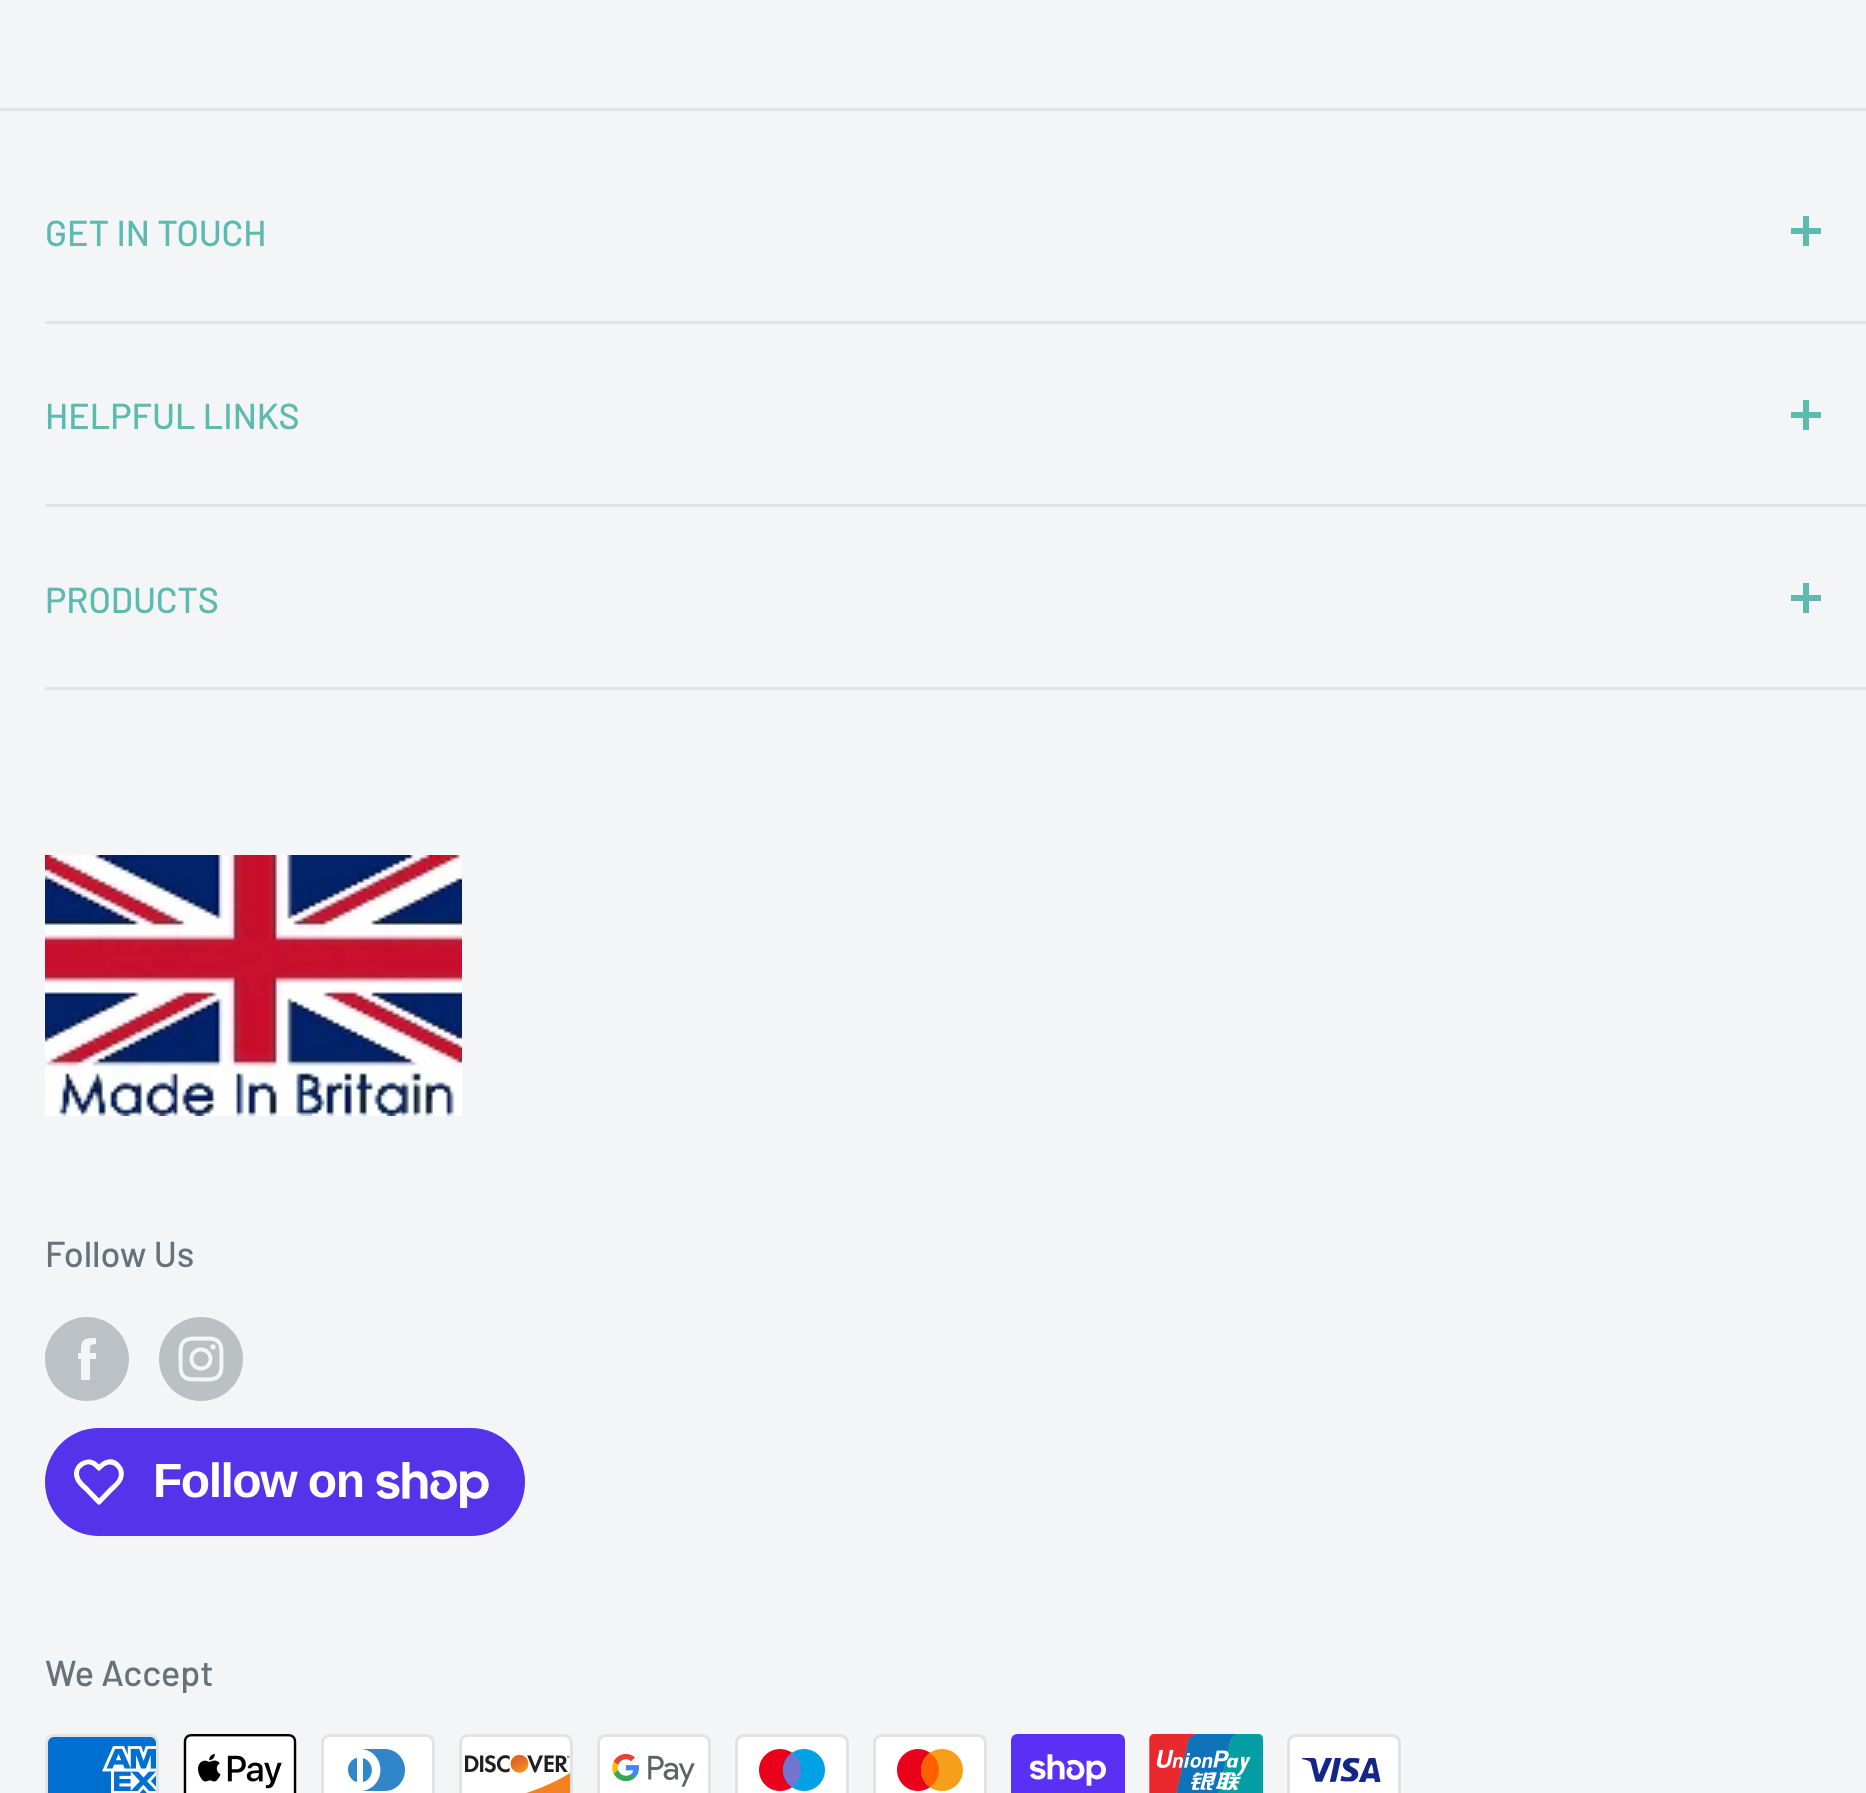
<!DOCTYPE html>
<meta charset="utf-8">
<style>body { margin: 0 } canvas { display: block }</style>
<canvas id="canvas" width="1866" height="1793"></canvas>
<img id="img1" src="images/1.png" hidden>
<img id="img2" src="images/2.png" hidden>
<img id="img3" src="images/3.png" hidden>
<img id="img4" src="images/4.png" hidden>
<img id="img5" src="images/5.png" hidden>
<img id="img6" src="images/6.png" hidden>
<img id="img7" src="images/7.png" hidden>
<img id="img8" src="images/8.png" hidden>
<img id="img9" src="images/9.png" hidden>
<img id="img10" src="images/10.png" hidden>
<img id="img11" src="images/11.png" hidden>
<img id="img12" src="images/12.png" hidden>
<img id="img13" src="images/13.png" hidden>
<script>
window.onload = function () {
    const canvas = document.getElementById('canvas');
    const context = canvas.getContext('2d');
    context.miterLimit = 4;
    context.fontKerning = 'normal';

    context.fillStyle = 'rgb(243, 245, 246)';
    context.fillRect(0, 0, 1866, 1793);
    context.fillStyle = 'rgb(225, 227, 228)';
    context.fillRect(0, 108, 1866, 3);
    context.fillRect(45, 321, 1821, 3);
    context.fillStyle = 'rgb(93, 186, 175)';
    context.fillRect(1803, 216, 6, 30);
    context.fillRect(1791, 228, 30, 6);
    context.fillStyle = 'rgb(225, 227, 228)';
    context.fillRect(45, 504, 1821, 3);
    context.fillStyle = 'rgb(93, 186, 175)';
    context.fillRect(1803, 400, 6, 30);
    context.fillRect(1791, 412, 30, 6);
    context.fillStyle = 'rgb(225, 227, 228)';
    context.fillRect(45, 687, 1821, 3);
    context.fillStyle = 'rgb(93, 186, 175)';
    context.fillRect(1803, 583, 6, 30);
    context.fillRect(1791, 595, 30, 6);
    context.drawImage(document.getElementById('img1'), 45, 855, 417, 261);
    context.fillStyle = 'rgb(187, 193, 196)';
    context.beginPath();
    context.moveTo(87, 1401);
    context.bezierCurveTo(64, 1401, 45, 1382, 45, 1359);
    context.bezierCurveTo(45, 1336, 64, 1317, 87, 1317);
    context.bezierCurveTo(110, 1317, 129, 1336, 129, 1359);
    context.bezierCurveTo(129, 1382, 110, 1401, 87, 1401);
    context.closePath();
    context.moveTo(96, 1353);
    context.lineTo(90, 1353);
    context.bezierCurveTo(90, 1347, 89, 1344, 96, 1344);
    context.lineTo(96, 1338);
    context.bezierCurveTo(82, 1338, 81, 1340, 81, 1353);
    context.lineTo(78, 1353);
    context.lineTo(78, 1359);
    context.lineTo(81, 1359);
    context.lineTo(81, 1380);
    context.lineTo(90, 1380);
    context.lineTo(90, 1359);
    context.lineTo(96, 1359);
    context.closePath();
    context.fill('evenodd');
    context.drawImage(document.getElementById('img2'), 159, 1317, 84, 84);
    context.fillStyle = 'rgb(84, 51, 235)';
    context.beginPath();
    context.roundRect(45, 1428, 480, 108, 54);
    context.fill();
    context.beginPath();
    context.moveTo(96.5, 1465.5);
    context.lineTo(99, 1468);
    context.bezierCurveTo(101, 1466, 103, 1463.5, 106.5, 1462.5);
    context.bezierCurveTo(115.5, 1459.5, 124, 1469, 120.5, 1478.5);
    context.bezierCurveTo(119, 1482.5, 115, 1486, 111.5, 1489);
    context.lineTo(99, 1502);
    context.lineTo(86.5, 1489);
    context.bezierCurveTo(83, 1486, 79, 1482.5, 77.5, 1478.5);
    context.bezierCurveTo(72.5, 1466.5, 87.5, 1456.5, 96.5, 1465.5);
    context.closePath();
    context.strokeStyle = 'rgb(255, 255, 255)';
    context.lineWidth = 5;
    context.lineJoin = 'round';
    context.stroke();
    context.drawImage(document.getElementById('img3'), 376, 1462, 113, 47);
    context.drawImage(document.getElementById('img4'), 45, 1734, 114, 59);
    context.drawImage(document.getElementById('img5'), 183, 1734, 114, 59);
    context.drawImage(document.getElementById('img6'), 321, 1734, 114, 59);
    context.drawImage(document.getElementById('img7'), 459, 1734, 114, 59);
    context.drawImage(document.getElementById('img8'), 597, 1734, 114, 59);
    context.drawImage(document.getElementById('img9'), 735, 1734, 114, 59);
    context.drawImage(document.getElementById('img10'), 873, 1734, 114, 59);
    context.drawImage(document.getElementById('img11'), 1011, 1734, 114, 59);
    context.drawImage(document.getElementById('img12'), 1149, 1734, 114, 59);
    context.drawImage(document.getElementById('img13'), 1287, 1734, 114, 59);
    context.font = '500 36px Barlow';
    context.fillStyle = 'rgb(93, 186, 175)';
    context.fillText('GET IN TOUCH', 45, 246);
    context.fillText('HELPFUL LINKS', 45, 429);
    context.fillText('PRODUCTS', 45, 613);
    context.fillStyle = 'rgb(103, 114, 121)';
    context.fillText('Follow Us', 45, 1267);
    context.letterSpacing = '-1.5px';
    context.font = 'bold 48px Liberation Sans';
    context.fillStyle = 'rgb(255, 255, 255)';
    context.fillText('Follow on', 153, 1497);
    context.letterSpacing = '0px';
    context.font = '500 36px Barlow';
    context.fillStyle = 'rgb(103, 114, 121)';
    context.fillText('We Accept', 45, 1686);
};
</script>
